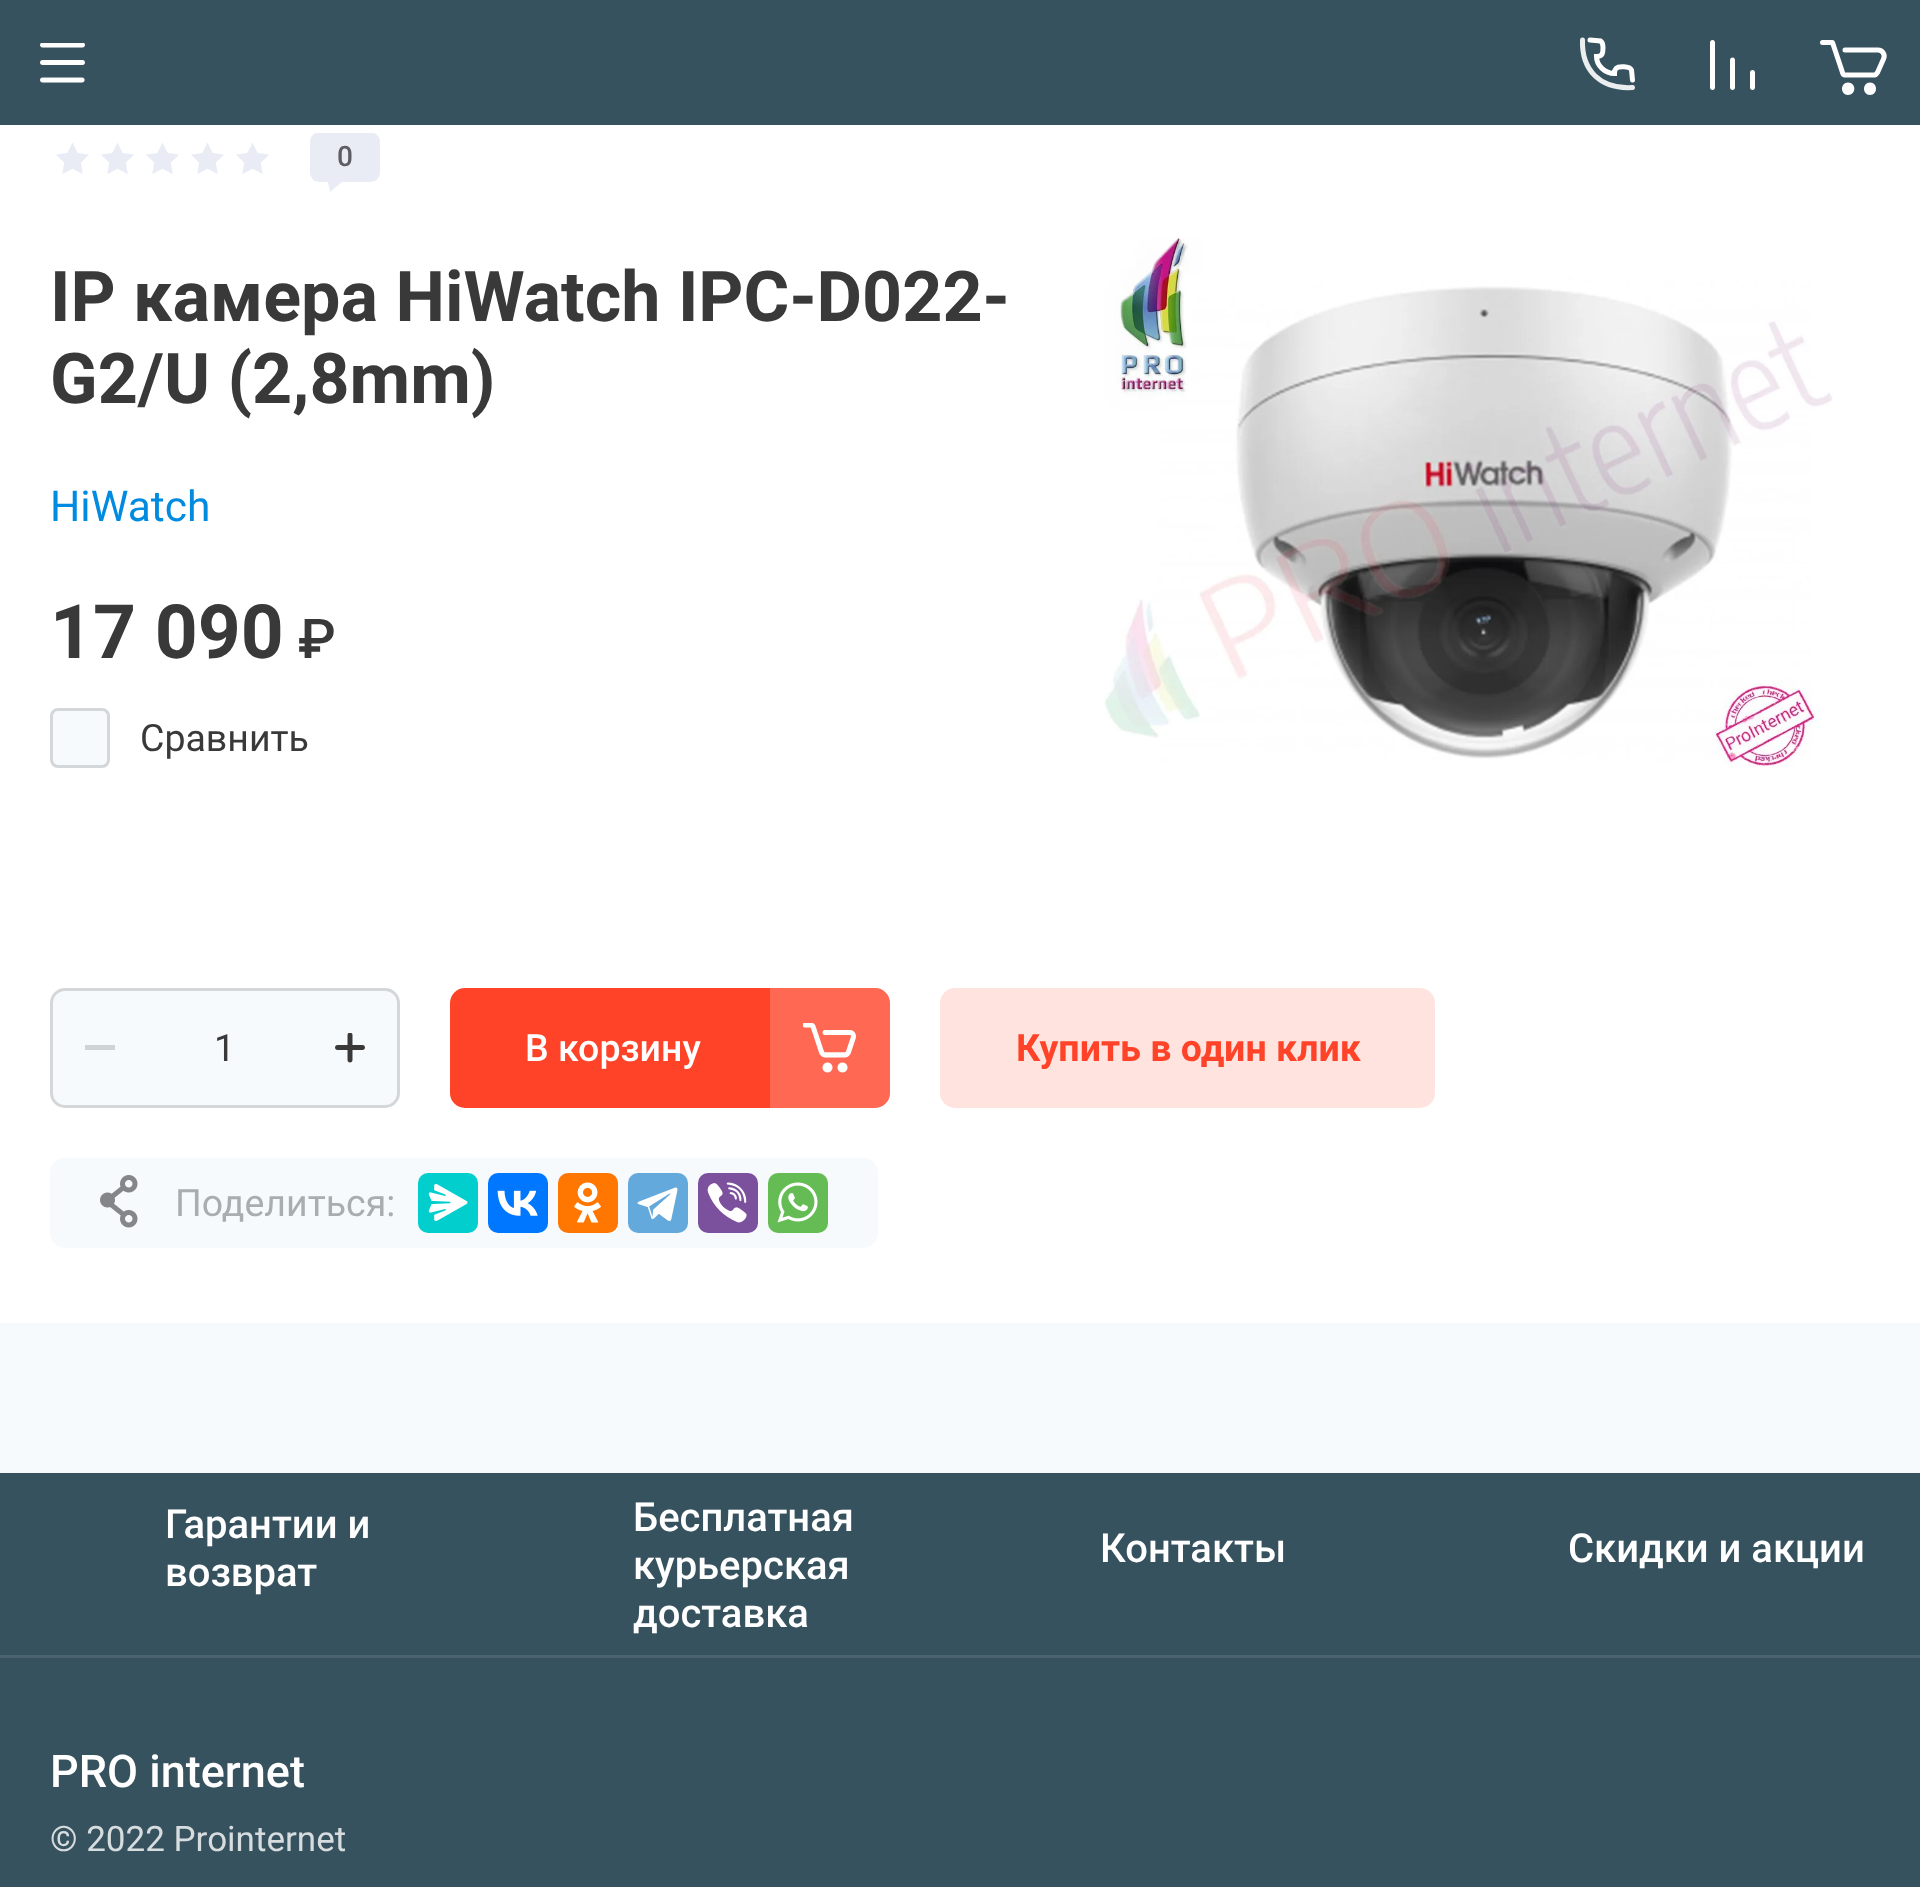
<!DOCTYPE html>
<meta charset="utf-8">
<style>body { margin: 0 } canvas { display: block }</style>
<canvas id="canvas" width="1920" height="1887"></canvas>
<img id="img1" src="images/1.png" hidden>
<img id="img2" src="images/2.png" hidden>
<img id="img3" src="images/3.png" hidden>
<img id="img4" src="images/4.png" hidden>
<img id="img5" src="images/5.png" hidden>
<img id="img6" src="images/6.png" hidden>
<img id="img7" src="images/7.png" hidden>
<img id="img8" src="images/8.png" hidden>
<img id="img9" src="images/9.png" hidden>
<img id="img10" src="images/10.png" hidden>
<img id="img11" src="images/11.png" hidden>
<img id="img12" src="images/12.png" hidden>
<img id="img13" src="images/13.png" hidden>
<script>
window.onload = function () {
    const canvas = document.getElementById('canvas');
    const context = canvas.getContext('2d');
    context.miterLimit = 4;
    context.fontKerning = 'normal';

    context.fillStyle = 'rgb(246, 250, 252)';
    context.fillRect(0, 0, 1920, 1887);
    context.fillStyle = 'rgb(55, 82, 95)';
    context.fillRect(0, 0, 1920, 125);
    context.drawImage(document.getElementById('img1'), 40, 43, 45, 40);
    context.beginPath();
    context.moveTo(1582.5, 40);
    context.bezierCurveTo(1581.5, 70, 1600, 89.5, 1632.5, 87.5);
    context.strokeStyle = 'rgb(235, 238, 239)';
    context.lineWidth = 5;
    context.lineCap = 'round';
    context.stroke();
    context.beginPath();
    context.moveTo(1632.5, 80);
    context.lineTo(1631.5, 70);
    context.bezierCurveTo(1629.5, 66, 1618.5, 66, 1616, 68.5);
    context.bezierCurveTo(1614.5, 70, 1614.5, 72, 1614.5, 73.5);
    context.bezierCurveTo(1605, 73.5, 1596.5, 65.5, 1596.5, 56.5);
    context.bezierCurveTo(1603, 56.5, 1603, 52.5, 1603, 47.5);
    context.bezierCurveTo(1603, 45, 1603, 42.5, 1600.5, 41);
    context.lineTo(1590, 40);
    context.strokeStyle = 'rgb(255, 255, 255)';
    context.stroke();
    context.drawImage(document.getElementById('img2'), 1710, 40, 45, 50);
    context.fillStyle = 'rgb(255, 255, 255)';
    context.beginPath();
    context.moveTo(1848, 82.5);
    context.bezierCurveTo(1840, 82.5, 1840, 95, 1848, 95);
    context.bezierCurveTo(1856.5, 95, 1856.5, 82.5, 1848, 82.5);
    context.closePath();
    context.moveTo(1870, 82.5);
    context.bezierCurveTo(1862, 82.5, 1862, 95, 1870, 95);
    context.bezierCurveTo(1878, 95, 1878, 82.5, 1870, 82.5);
    context.closePath();
    context.fill('evenodd');
    context.beginPath();
    context.moveTo(1822.5, 42.5);
    context.lineTo(1832.5, 42.5);
    context.lineTo(1842.5, 72.5);
    context.bezierCurveTo(1843, 74.5, 1843, 75, 1845, 75);
    context.lineTo(1875, 75);
    context.bezierCurveTo(1876, 75, 1876, 74, 1877.5, 72.5);
    context.lineTo(1883.5, 59);
    context.bezierCurveTo(1885.5, 54.5, 1882.5, 50, 1878, 50);
    context.lineTo(1845, 50);
    context.lineJoin = 'round';
    context.stroke();
    context.fillRect(0, 125, 1920, 1198);
    context.drawImage(document.getElementById('img3'), 56, 143, 213, 31);
    context.save();
    context.beginPath();
    context.rect(310, 133, 70, 60);
    context.clip();
    context.fillStyle = 'rgb(233, 236, 245)';
    context.beginPath();
    context.moveTo(320, 132);
    context.bezierCurveTo(314, 132, 310, 137, 310, 142);
    context.lineTo(310, 172);
    context.bezierCurveTo(310, 178, 314, 182, 320, 182);
    context.lineTo(328, 182);
    context.lineTo(330, 192);
    context.lineTo(342, 182);
    context.lineTo(370, 182);
    context.bezierCurveTo(376, 182, 380, 178, 380, 172);
    context.lineTo(380, 142);
    context.bezierCurveTo(380, 137, 376, 132, 370, 132);
    context.closePath();
    context.fill();
    context.restore();
    context.fillStyle = 'rgb(246, 250, 252)';
    context.beginPath();
    context.roundRect(50, 708, 60, 60, 8);
    context.fill();
    context.beginPath();
    context.roundRect(51.5, 709.5, 57, 57, 6.5);
    context.strokeStyle = 'rgba(18, 18, 18, 0.15)';
    context.lineWidth = 3;
    context.lineJoin = 'miter';
    context.stroke();
    context.drawImage(document.getElementById('img4'), 1104, 237, 729, 530);
    context.beginPath();
    context.roundRect(50, 988, 350, 120, 15);
    context.fill();
    context.beginPath();
    context.roundRect(51.5, 989.5, 347, 117, 13.5);
    context.stroke();
    context.fillStyle = 'rgb(208, 211, 213)';
    context.fillRect(85, 1045, 30, 5);
    context.drawImage(document.getElementById('img5'), 335, 1033, 30, 30);
    context.fillStyle = 'rgb(255, 67, 41)';
    context.beginPath();
    context.roundRect(450, 988, 440, 120, 15);
    context.fill();
    context.fillStyle = 'rgba(255, 255, 255, 0.2)';
    context.beginPath();
    context.roundRect(770, 988, 120, 120, [0, 15, 15, 0]);
    context.fill();
    context.drawImage(document.getElementById('img6'), 803, 1023, 53, 50);
    context.fillStyle = 'rgb(255, 227, 223)';
    context.beginPath();
    context.roundRect(940, 988, 495, 120, 15);
    context.fill();
    context.fillStyle = 'rgb(246, 250, 252)';
    context.beginPath();
    context.roundRect(50, 1158, 828, 90, 15);
    context.fill();
    context.drawImage(document.getElementById('img7'), 100, 1175, 38, 53);
    context.fillStyle = 'rgb(3, 206, 206)';
    context.beginPath();
    context.roundRect(418, 1173, 60, 60, 10);
    context.fill();
    context.drawImage(document.getElementById('img8'), 428, 1183, 40, 39);
    context.fillStyle = 'rgb(0, 119, 255)';
    context.beginPath();
    context.roundRect(488, 1173, 60, 60, 10);
    context.fill();
    context.drawImage(document.getElementById('img9'), 497, 1190, 41, 26);
    context.fillStyle = 'rgb(255, 119, 0)';
    context.beginPath();
    context.roundRect(558, 1173, 60, 60, 10);
    context.fill();
    context.drawImage(document.getElementById('img10'), 574, 1182, 27, 41);
    context.fillStyle = 'rgb(100, 169, 220)';
    context.beginPath();
    context.roundRect(628, 1173, 60, 60, 10);
    context.fill();
    context.drawImage(document.getElementById('img11'), 637, 1187, 41, 34);
    context.fillStyle = 'rgb(123, 81, 157)';
    context.beginPath();
    context.roundRect(698, 1173, 60, 60, 10);
    context.fill();
    context.drawImage(document.getElementById('img12'), 707, 1182, 40, 41);
    context.fillStyle = 'rgb(101, 188, 84)';
    context.beginPath();
    context.roundRect(768, 1173, 60, 60, 10);
    context.fill();
    context.drawImage(document.getElementById('img13'), 777, 1182, 41, 41);
    context.fillStyle = 'rgb(55, 82, 95)';
    context.fillRect(0, 1473, 1920, 182);
    context.fillStyle = 'rgb(75, 99, 111)';
    context.fillRect(0, 1655, 1920, 3);
    context.fillStyle = 'rgb(55, 82, 95)';
    context.fillRect(0, 1658, 1920, 229);
    context.font = '500 28px Roboto';
    context.fillStyle = 'rgb(93, 94, 98)';
    context.fillText('0', 337, 166);
    context.font = 'bold 70px Roboto';
    context.fillStyle = 'rgb(57, 57, 57)';
    context.fillText('IP камера HiWatch IPC-D022-', 50, 321);
    context.fillText('G2/U (2,8mm)', 50, 403);
    context.font = '42.5px Roboto';
    context.fillStyle = 'rgb(0, 139, 225)';
    context.fillText('HiWatch', 50, 521);
    context.font = 'bold 75px Roboto';
    context.fillStyle = 'rgb(57, 57, 57)';
    context.fillText('17 090', 50, 658);
    context.font = '500 55px Roboto';
    context.fillText('₽', 298, 658);
    context.font = '37.5px Roboto';
    context.fillText('Сравнить', 140, 751);
    context.fillText('1', 214, 1061);
    context.font = '500 37.5px Roboto';
    context.fillStyle = 'rgb(255, 255, 255)';
    context.fillText('В корзину', 525, 1061);
    context.font = 'bold 37.5px Roboto';
    context.fillStyle = 'rgb(255, 67, 41)';
    context.fillText('Купить в один клик', 1016, 1061);
    context.font = '37.5px Roboto';
    context.fillStyle = 'rgb(170, 173, 174)';
    context.fillText('Поделиться:', 175, 1216);
    context.font = '500 40px Roboto';
    context.fillStyle = 'rgb(255, 255, 255)';
    context.fillText('Гарантии и', 165, 1538);
    context.fillText('возврат', 165, 1586);
    context.fillText('Бесплатная', 633, 1531);
    context.fillText('курьерская', 633, 1579);
    context.fillText('доставка', 633, 1627);
    context.fillText('Контакты', 1100, 1562);
    context.fillText('Скидки и акции', 1568, 1562);
    context.font = '500 45px Roboto';
    context.fillText('PRO internet', 50, 1787);
    context.font = '35px Roboto';
    context.fillStyle = 'rgb(215, 220, 223)';
    context.fillText('© 2022 Prointernet', 50, 1851);
};
</script>
